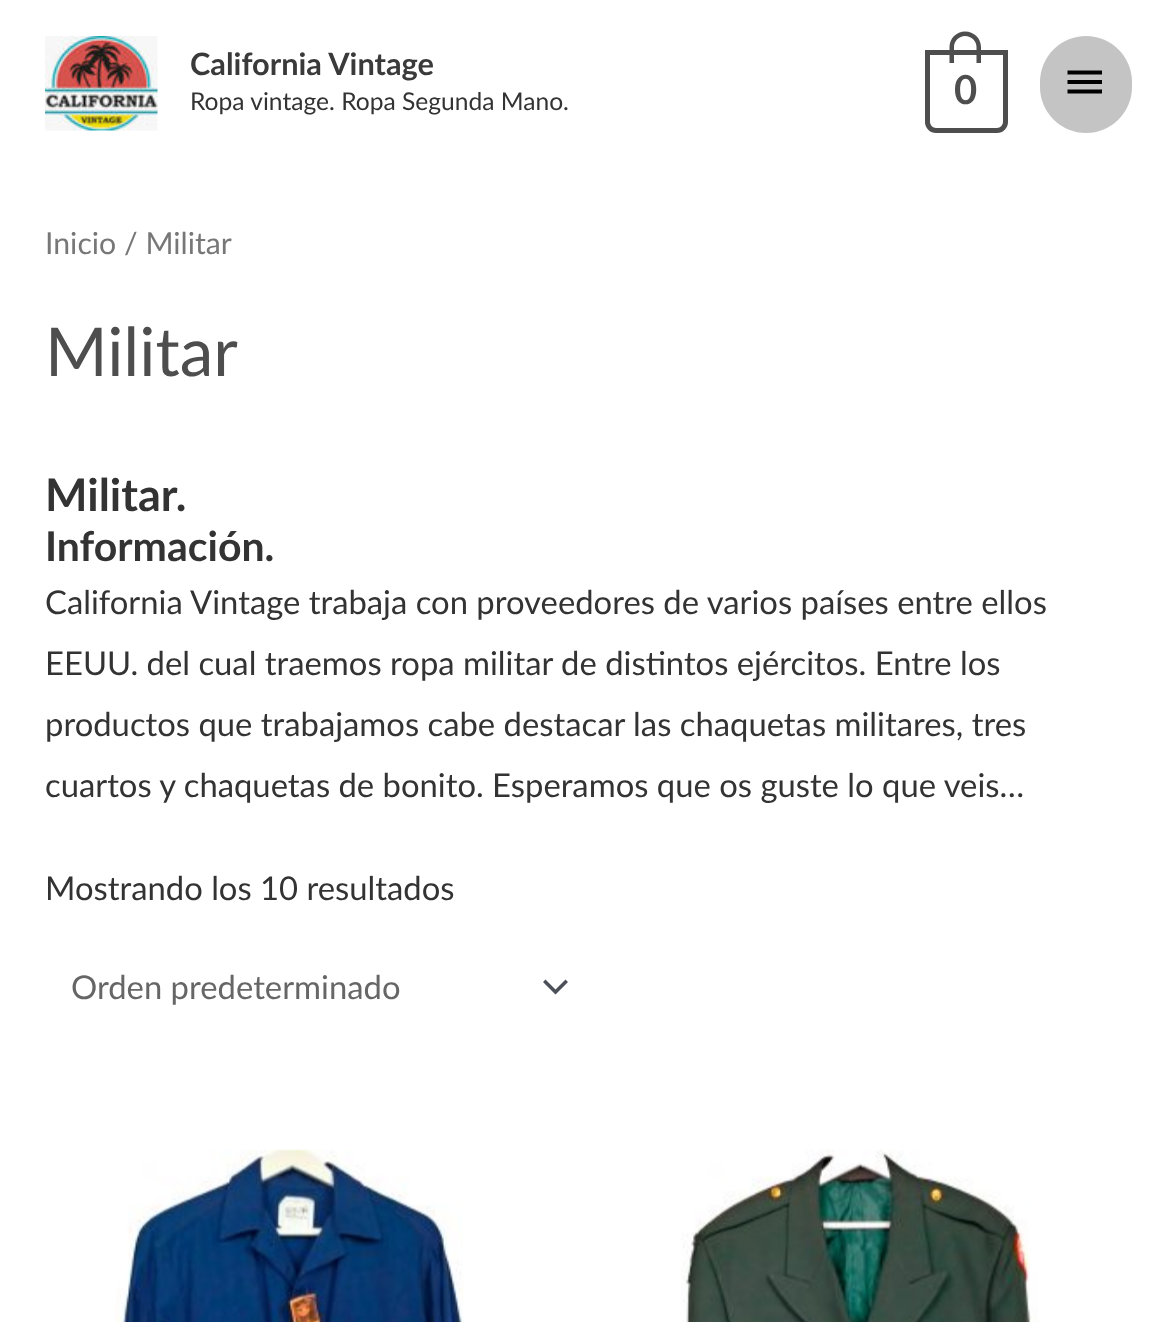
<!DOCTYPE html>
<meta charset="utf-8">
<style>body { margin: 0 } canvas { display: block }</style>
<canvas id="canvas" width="1175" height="1322"></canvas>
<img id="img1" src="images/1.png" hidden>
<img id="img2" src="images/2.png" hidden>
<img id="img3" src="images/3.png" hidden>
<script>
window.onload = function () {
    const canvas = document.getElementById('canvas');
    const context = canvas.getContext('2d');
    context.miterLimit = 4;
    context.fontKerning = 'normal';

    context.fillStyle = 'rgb(255, 255, 255)';
    context.fillRect(0, 0, 1175, 1322);
    context.drawImage(document.getElementById('img1'), 45, 36, 113, 95);
    context.beginPath();
    context.roundRect(927.5, 52.5, 78, 78, [0, 0, 8.5, 8.5]);
    context.strokeStyle = 'rgb(78, 78, 78)';
    context.lineWidth = 5;
    context.stroke();
    context.fillStyle = 'rgb(78, 78, 78)';
    context.beginPath();
    context.moveTo(965, 31.5);
    context.bezierCurveTo(974, 31.5, 981, 38.5, 981, 47);
    context.lineTo(981, 63);
    context.lineTo(949.5, 63);
    context.lineTo(949.5, 47);
    context.bezierCurveTo(949.5, 38.5, 956.5, 31.5, 965, 31.5);
    context.closePath();
    context.moveTo(965, 36);
    context.bezierCurveTo(971.5, 36, 976.5, 41, 976.5, 47);
    context.lineTo(976.5, 63);
    context.lineTo(954, 63);
    context.lineTo(954, 47);
    context.bezierCurveTo(954, 41, 959, 36, 965, 36);
    context.closePath();
    context.fill('evenodd');
    context.fillStyle = 'rgb(196, 196, 196)';
    context.beginPath();
    context.roundRect(1040, 36, 92, 97, 46);
    context.fill();
    context.fillStyle = 'rgb(0, 0, 0)';
    context.beginPath();
    context.moveTo(1067.5, 70.5);
    context.lineTo(1102, 70.5);
    context.lineTo(1102, 74.5);
    context.lineTo(1067.5, 74.5);
    context.closePath();
    context.moveTo(1067.5, 84);
    context.lineTo(1067.5, 80);
    context.lineTo(1102, 80);
    context.lineTo(1102, 84);
    context.closePath();
    context.moveTo(1067.5, 93.5);
    context.lineTo(1067.5, 89.5);
    context.lineTo(1102, 89.5);
    context.lineTo(1102, 93.5);
    context.closePath();
    context.fill();
    context.fillStyle = 'rgb(75, 79, 88)';
    context.beginPath();
    context.moveTo(543, 982);
    context.lineTo(555.5, 994.5);
    context.lineTo(568, 982);
    context.lineTo(565.5, 979.5);
    context.lineTo(555.5, 989.5);
    context.lineTo(545.5, 979.5);
    context.closePath();
    context.fill();
    context.drawImage(document.getElementById('img2'), 115, 1149, 349, 173);
    context.drawImage(document.getElementById('img3'), 681, 1149, 357, 173);
    context.font = 'bold 30.75px Lato';
    context.fillStyle = 'rgb(58, 58, 58)';
    context.fillText('California Vintage', 190, 75);
    context.font = '24.6px Lato';
    context.fillStyle = 'rgb(51, 51, 51)';
    context.fillText('Ropa vintage. Ropa Segunda Mano.', 190, 110);
    context.font = 'bold 40px Lato';
    context.fillStyle = 'rgb(78, 78, 78)';
    context.fillText('0', 954, 104);
    context.font = '30.25px Lato';
    context.fillStyle = 'rgb(119, 119, 119)';
    context.fillText('Inicio / Militar', 45, 254);
    context.font = '67.5px Lato';
    context.fillStyle = 'rgb(78, 78, 78)';
    context.fillText('Militar', 45, 376);
    context.font = 'bold 45px Lato';
    context.fillStyle = 'rgb(51, 51, 51)';
    context.fillText('Militar.', 45, 511);
    context.font = 'bold 41px Lato';
    context.fillText('Información.', 45, 561);
    context.font = '32.8px Lato';
    context.fillText('California Vintage trabaja con proveedores de varios países entre ellos', 45, 614);
    context.fillText('EEUU. del cual traemos ropa militar de distintos ejércitos. Entre los', 45, 675);
    context.fillText('productos que trabajamos cabe destacar las chaquetas militares, tres', 45, 736);
    context.fillText('cuartos y chaquetas de bonito. Esperamos que os guste lo que veis…', 45, 797);
    context.fillText('Mostrando los 10 resultados', 45, 900);
    context.fillStyle = 'rgb(102, 102, 102)';
    context.fillText('Orden predeterminado', 71, 999);
};
</script>
